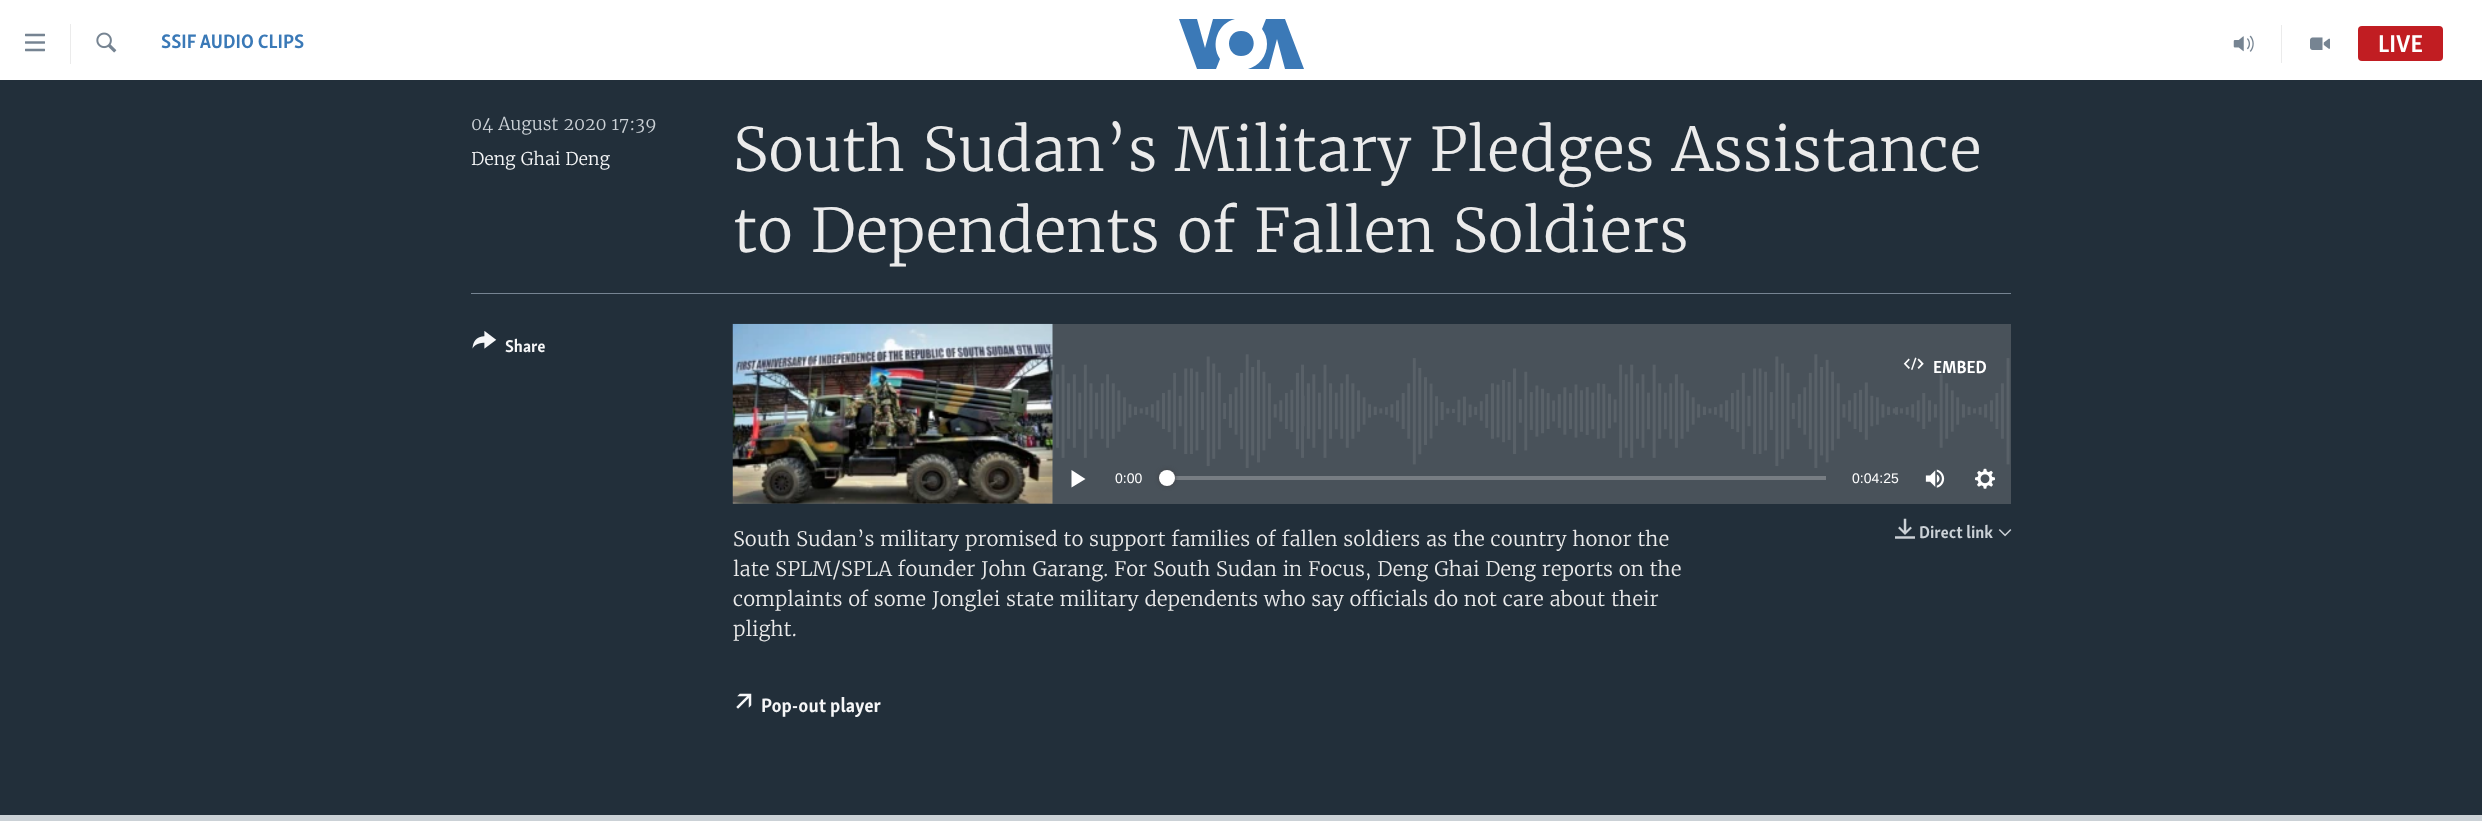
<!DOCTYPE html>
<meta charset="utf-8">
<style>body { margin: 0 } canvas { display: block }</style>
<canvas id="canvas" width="2482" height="836"></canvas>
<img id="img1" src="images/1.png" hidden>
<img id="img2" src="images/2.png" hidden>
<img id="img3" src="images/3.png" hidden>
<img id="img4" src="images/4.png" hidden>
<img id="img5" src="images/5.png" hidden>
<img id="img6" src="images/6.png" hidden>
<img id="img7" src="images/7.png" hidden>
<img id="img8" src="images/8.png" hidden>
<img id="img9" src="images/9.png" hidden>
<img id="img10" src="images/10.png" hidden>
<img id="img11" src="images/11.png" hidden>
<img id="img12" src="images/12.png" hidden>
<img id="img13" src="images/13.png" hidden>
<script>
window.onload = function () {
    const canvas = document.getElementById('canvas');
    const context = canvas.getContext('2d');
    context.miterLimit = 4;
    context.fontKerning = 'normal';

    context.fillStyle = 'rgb(255, 255, 255)';
    context.fillRect(0, 0, 2482, 836);
    context.drawImage(document.getElementById('img1'), 25, 33, 20, 19);
    context.fillStyle = 'rgb(235, 235, 235)';
    context.fillRect(70, 24, 1, 40);
    context.drawImage(document.getElementById('img2'), 96, 32, 21, 21);
    context.fillStyle = 'rgb(59, 121, 183)';
    context.beginPath();
    context.moveTo(1220, 59);
    context.lineTo(1216, 69);
    context.lineTo(1197, 69);
    context.lineTo(1179, 19);
    context.lineTo(1197, 19);
    context.lineTo(1205, 48);
    context.lineTo(1213, 19);
    context.lineTo(1235, 19);
    context.bezierCurveTo(1218, 23, 1210, 44, 1220, 59);
    context.closePath();
    context.moveTo(1241, 31);
    context.bezierCurveTo(1225, 31, 1225, 56, 1241, 56);
    context.bezierCurveTo(1258, 56, 1258, 31, 1241, 31);
    context.closePath();
    context.moveTo(1267, 44);
    context.bezierCurveTo(1267, 56, 1259, 66, 1248, 69);
    context.lineTo(1269, 69);
    context.lineTo(1277, 39);
    context.lineTo(1285, 69);
    context.lineTo(1304, 69);
    context.lineTo(1285, 19);
    context.lineTo(1266, 19);
    context.lineTo(1262, 29);
    context.bezierCurveTo(1265, 33, 1267, 38, 1267, 44);
    context.closePath();
    context.fill();
    context.fillStyle = 'rgb(235, 235, 235)';
    context.fillRect(2281, 25, 1, 38);
    context.drawImage(document.getElementById('img3'), 2233, 35, 21, 17);
    context.drawImage(document.getElementById('img4'), 2310, 37, 20, 13);
    context.fillStyle = 'rgb(193, 29, 34)';
    context.beginPath();
    context.roundRect(2358, 26, 85, 35, 4);
    context.fill();
    context.fillStyle = 'rgb(34, 47, 58)';
    context.fillRect(0, 80, 2482, 735);
    context.fillStyle = 'rgb(203, 209, 214)';
    context.fillRect(0, 815, 2482, 6);
    context.fillStyle = 'rgb(118, 132, 146)';
    context.fillRect(471, 293, 1540, 1);
    context.drawImage(document.getElementById('img5'), 472, 331, 25, 18);
    context.fillStyle = 'rgb(73, 82, 90)';
    context.fillRect(733, 324, 1278, 180);
    context.drawImage(document.getElementById('img6'), 732, 354, 1278, 114);
    context.drawImage(document.getElementById('img7'), 732, 323, 321, 181);
    context.drawImage(document.getElementById('img8'), 1903, 357, 21, 13);
    context.fillStyle = 'rgb(255, 255, 255)';
    context.beginPath();
    context.moveTo(1071.5, 487.5);
    context.lineTo(1085.5, 479);
    context.lineTo(1071.5, 470);
    context.closePath();
    context.fill();
    context.fillStyle = 'rgb(119, 125, 131)';
    context.fillRect(1166, 476, 660, 4);
    context.fillStyle = 'rgb(65, 65, 68)';
    context.filter = 'blur(2px)';
    context.beginPath();
    context.roundRect(1159, 470, 16, 16, 8);
    context.fill();
    context.filter = 'none';
    context.fillStyle = 'rgb(255, 255, 255)';
    context.beginPath();
    context.arc(1167, 478, 8, 0, 2 * Math.PI);
    context.fill();
    context.drawImage(document.getElementById('img9'), 1925, 469, 20, 19);
    context.drawImage(document.getElementById('img10'), 1975, 468, 20, 21);
    context.drawImage(document.getElementById('img11'), 1895, 518, 20, 21);
    context.drawImage(document.getElementById('img12'), 1998, 529, 14, 8);
    context.drawImage(document.getElementById('img13'), 736, 693, 16, 16);
    context.font = 'bold 20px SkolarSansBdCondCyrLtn';
    context.fillStyle = 'rgb(58, 121, 183)';
    context.fillText('SSIF AUDIO CLIPS', 161, 48);
    context.font = 'bold 25px SkolarSansBdCondCyrLtn';
    context.fillStyle = 'rgb(255, 255, 255)';
    context.fillText('LIVE', 2378, 52);
    context.font = '300 17.5px Merriweather';
    context.fillStyle = 'rgb(203, 209, 214)';
    context.fillText('04 August 2020 17:39', 471, 130);
    context.fillStyle = 'rgb(246, 247, 248)';
    context.fillText('Deng Ghai Deng', 471, 165);
    context.font = '300 60px Merriweather';
    context.fillStyle = 'rgb(235, 235, 235)';
    context.fillText('South Sudan’s Military Pledges Assistance', 733, 171);
    context.fillText('to Dependents of Fallen Soldiers', 733, 252);
    context.font = 'bold 17.5px SkolarSansBdCondCyrLtn';
    context.fillStyle = 'rgb(246, 247, 248)';
    context.fillText('Share', 505, 352);
    context.font = 'bold 18px SkolarSansBdCondCyrLtn';
    context.fillStyle = 'rgb(255, 255, 255)';
    context.fillText('EMBED', 1933, 373);
    context.font = '14px Liberation Sans';
    context.fillText('0:00', 1115, 483);
    context.fillText('0:04:25', 1852, 483);
    context.font = '300 20px Merriweather';
    context.fillStyle = 'rgb(235, 235, 235)';
    context.fillText('South Sudan’s military promised to support families of fallen soldiers as the country honor the', 733, 546);
    context.fillText('late SPLM/SPLA founder John Garang. For South Sudan in Focus, Deng Ghai Deng reports on the', 733, 576);
    context.fillText('complaints of some Jonglei state military dependents who say officials do not care about their', 733, 606);
    context.fillText('plight.', 733, 636);
    context.font = 'bold 17.5px SkolarSansBdCondCyrLtn';
    context.fillStyle = 'rgb(203, 209, 214)';
    context.fillText('Direct link', 1919, 538);
    context.font = 'bold 20px SkolarSansBdCondCyrLtn';
    context.fillStyle = 'rgb(246, 247, 248)';
    context.fillText('Pop-out player', 761, 712);
};
</script>
